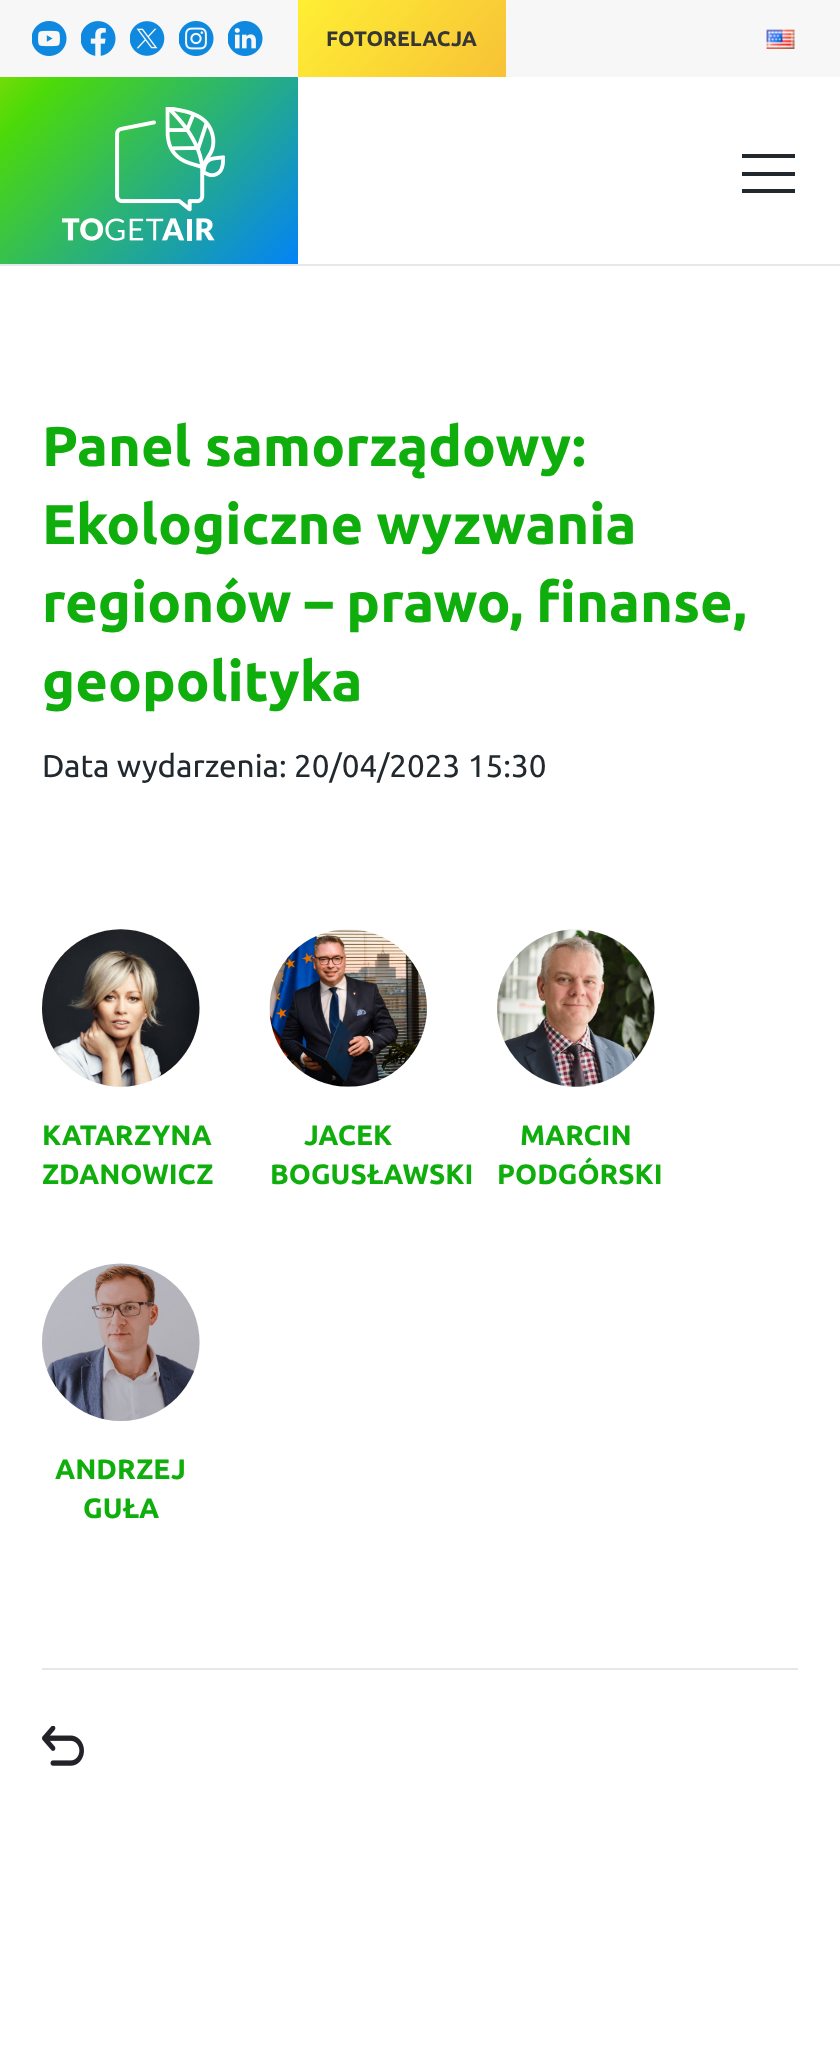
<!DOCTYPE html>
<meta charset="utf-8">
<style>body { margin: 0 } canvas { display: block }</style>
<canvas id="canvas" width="840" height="2069"></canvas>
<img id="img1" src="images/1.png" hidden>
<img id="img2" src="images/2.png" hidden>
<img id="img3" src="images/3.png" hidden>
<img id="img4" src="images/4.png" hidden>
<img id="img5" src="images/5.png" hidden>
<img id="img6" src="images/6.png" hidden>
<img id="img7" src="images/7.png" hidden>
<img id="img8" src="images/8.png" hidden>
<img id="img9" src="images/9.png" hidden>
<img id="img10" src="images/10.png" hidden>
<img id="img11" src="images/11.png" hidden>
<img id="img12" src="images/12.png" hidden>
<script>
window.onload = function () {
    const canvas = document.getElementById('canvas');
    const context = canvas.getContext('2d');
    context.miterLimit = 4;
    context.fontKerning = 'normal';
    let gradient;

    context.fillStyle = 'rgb(255, 255, 255)';
    context.fillRect(0, 0, 840, 2069);
    context.fillStyle = 'rgb(230, 232, 234)';
    context.fillRect(0, 264, 840, 2);
    context.fillStyle = 'rgb(247, 247, 247)';
    context.fillRect(0, 0, 840, 77);
    context.drawImage(document.getElementById('img1'), 32, 21, 35, 35);
    context.drawImage(document.getElementById('img2'), 81, 21, 35, 35);
    context.drawImage(document.getElementById('img3'), 130, 21, 35, 35);
    context.drawImage(document.getElementById('img4'), 179, 21, 35, 35);
    context.drawImage(document.getElementById('img5'), 228, 21, 35, 35);
    context.drawImage(document.getElementById('img6'), 766, 29, 29, 20);
    gradient = context.createLinearGradient(308, -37, 577, 180);
    gradient.addColorStop(0, 'rgb(255, 242, 51)');
    gradient.addColorStop(1, 'rgb(243, 168, 57)');
    context.fillStyle = gradient;
    context.fillRect(298, 0, 208, 77);
    gradient = context.createLinearGradient(276, 301, -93, -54);
    gradient.addColorStop(0, 'rgb(0, 128, 255)');
    gradient.addColorStop(0.61, 'rgb(76, 218, 9)');
    gradient.addColorStop(1, 'rgb(255, 226, 0)');
    context.fillStyle = gradient;
    context.fillRect(0, 77, 298, 187);
    context.drawImage(document.getElementById('img7'), 62, 107, 163, 134);
    context.fillStyle = 'rgb(33, 41, 47)';
    context.fillRect(742, 154, 53, 4);
    context.fillRect(742, 172, 53, 4);
    context.fillRect(742, 189, 53, 4);
    context.fillStyle = 'rgb(247, 247, 247)';
    context.beginPath();
    context.arc(121, 1008, 79, 0, 2 * Math.PI);
    context.fill();
    context.drawImage(document.getElementById('img8'), 42, 929, 158, 158);
    context.beginPath();
    context.roundRect(270, 929, 157, 158, 78.5);
    context.fill();
    context.drawImage(document.getElementById('img9'), 269, 929, 158, 158);
    context.beginPath();
    context.arc(576, 1008, 79, 0, 2 * Math.PI);
    context.fill();
    context.drawImage(document.getElementById('img10'), 497, 929, 158, 158);
    context.beginPath();
    context.roundRect(42, 1264, 158, 157, 78.5);
    context.fill();
    context.drawImage(document.getElementById('img11'), 42, 1263, 158, 158);
    context.fillStyle = 'rgb(229, 231, 235)';
    context.fillRect(42, 1668, 756, 2);
    context.drawImage(document.getElementById('img12'), 42, 1726, 42, 40);
    context.font = 'bold 21px Ubuntu';
    context.fillStyle = 'rgb(54, 54, 54)';
    context.fillText('FOTORELACJA', 326, 46);
    context.font = 'bold 56px Ubuntu';
    context.fillStyle = 'rgb(15, 174, 12)';
    context.fillText('Panel samorządowy:', 42, 466);
    context.fillText('Ekologiczne wyzwania', 42, 544);
    context.fillText('regionów – prawo, finanse,', 42, 622);
    context.fillText('geopolityka', 42, 701);
    context.font = '31.5px Ubuntu';
    context.fillStyle = 'rgb(33, 41, 47)';
    context.fillText('Data wydarzenia: 20/04/2023 15:30', 42, 777);
    context.font = 'bold 28px Ubuntu';
    context.fillStyle = 'rgb(15, 174, 12)';
    context.fillText('KATARZYNA', 42, 1145);
    context.fillText('ZDANOWICZ', 42, 1184);
    context.fillText('JACEK', 304, 1145);
    context.fillText('BOGUSŁAWSKI', 270, 1184);
    context.fillText('MARCIN', 520, 1145);
    context.fillText('PODGÓRSKI', 497, 1184);
    context.fillText('ANDRZEJ', 55, 1479);
    context.fillText('GUŁA', 83, 1518);
};
</script>
